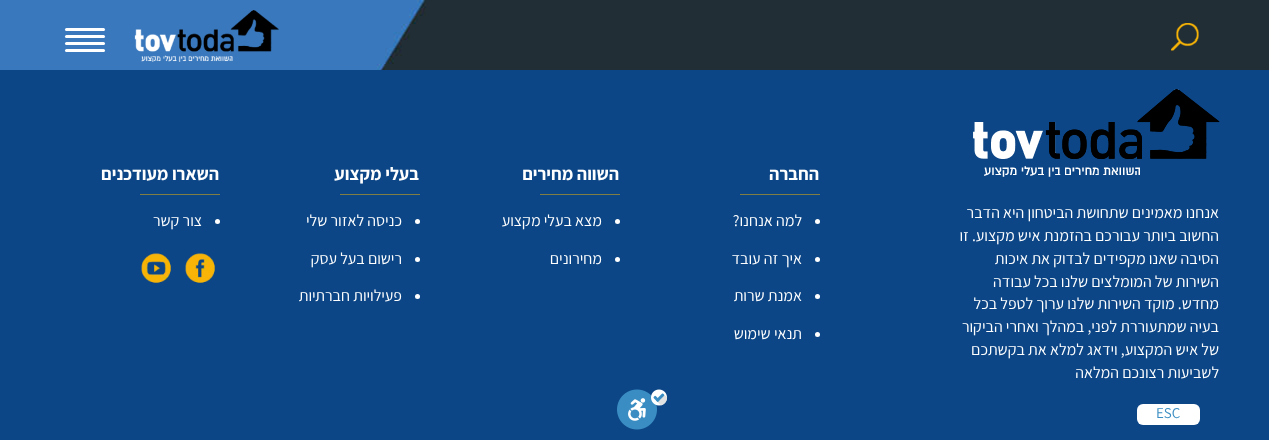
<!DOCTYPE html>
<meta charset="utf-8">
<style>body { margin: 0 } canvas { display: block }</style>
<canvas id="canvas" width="1269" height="440"></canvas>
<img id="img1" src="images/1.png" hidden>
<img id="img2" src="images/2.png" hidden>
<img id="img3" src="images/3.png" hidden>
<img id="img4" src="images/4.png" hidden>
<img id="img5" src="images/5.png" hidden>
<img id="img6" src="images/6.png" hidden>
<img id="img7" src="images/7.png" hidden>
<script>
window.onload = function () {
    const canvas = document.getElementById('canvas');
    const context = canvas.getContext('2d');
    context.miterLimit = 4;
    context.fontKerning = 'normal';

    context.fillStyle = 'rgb(12, 70, 134)';
    context.fillRect(0, 0, 1269, 440);
    context.fillStyle = 'rgb(57, 120, 189)';
    context.fillRect(0, 0, 377, 70);
    context.drawImage(document.getElementById('img1'), 377, 0, 892, 70);
    context.drawImage(document.getElementById('img2'), 1171, 23, 28, 28);
    context.drawImage(document.getElementById('img3'), 134, 10, 145, 52);
    context.fillStyle = 'rgb(255, 255, 255)';
    context.beginPath();
    context.roundRect(65, 28, 40, 3, 1.5);
    context.fill();
    context.beginPath();
    context.roundRect(65, 35, 40, 3, 1.5);
    context.fill();
    context.beginPath();
    context.roundRect(65, 42, 40, 3, 1.5);
    context.fill();
    context.beginPath();
    context.roundRect(65, 49, 40, 3, 1.5);
    context.fill();
    context.drawImage(document.getElementById('img4'), 973, 89, 247, 88);
    context.fillStyle = 'rgb(130, 125, 67)';
    context.fillRect(740, 194, 80, 1);
    context.fillStyle = 'rgb(255, 255, 255)';
    context.beginPath();
    context.arc(817.5, 221.5, 2.5, 0, 2 * Math.PI);
    context.fill();
    context.beginPath();
    context.arc(817.5, 259.5, 2.5, 0, 2 * Math.PI);
    context.fill();
    context.beginPath();
    context.arc(817.5, 296.5, 2.5, 0, 2 * Math.PI);
    context.fill();
    context.beginPath();
    context.arc(817.5, 334.5, 2.5, 0, 2 * Math.PI);
    context.fill();
    context.fillStyle = 'rgb(130, 125, 67)';
    context.fillRect(540, 194, 80, 1);
    context.fillStyle = 'rgb(255, 255, 255)';
    context.beginPath();
    context.arc(617.5, 221.5, 2.5, 0, 2 * Math.PI);
    context.fill();
    context.beginPath();
    context.arc(617.5, 259.5, 2.5, 0, 2 * Math.PI);
    context.fill();
    context.fillStyle = 'rgb(130, 125, 67)';
    context.fillRect(340, 194, 80, 1);
    context.fillStyle = 'rgb(255, 255, 255)';
    context.beginPath();
    context.arc(417.5, 221.5, 2.5, 0, 2 * Math.PI);
    context.fill();
    context.beginPath();
    context.arc(417.5, 259.5, 2.5, 0, 2 * Math.PI);
    context.fill();
    context.beginPath();
    context.arc(417.5, 296.5, 2.5, 0, 2 * Math.PI);
    context.fill();
    context.fillStyle = 'rgb(130, 125, 67)';
    context.fillRect(140, 194, 80, 1);
    context.fillStyle = 'rgb(255, 255, 255)';
    context.beginPath();
    context.arc(217.5, 221.5, 2.5, 0, 2 * Math.PI);
    context.fill();
    context.drawImage(document.getElementById('img5'), 185, 253, 30, 30);
    context.drawImage(document.getElementById('img6'), 141, 253, 30, 30);
    context.beginPath();
    context.roundRect(1137, 404, 63, 21, 6);
    context.fill();
    context.drawImage(document.getElementById('img7'), 617, 389, 51, 41);
    context.direction = 'rtl';
    context.font = '16px Assistant';
    context.fillText('אנחנו מאמינים שתחושת הביטחון היא הדבר', 1219, 218);
    context.fillText('החשוב ביותר עבורכם בהזמנת איש מקצוע. זו', 1219, 241);
    context.fillText('הסיבה שאנו מקפידים לבדוק את איכות', 1219, 264);
    context.fillText('השירות של המומלצים שלנו בכל עבודה', 1219, 287);
    context.fillText('מחדש. מוקד השירות שלנו ערוך לטפל בכל', 1219, 309);
    context.fillText('בעיה שמתעוררת לפני, במהלך ואחרי הביקור', 1219, 332);
    context.fillText('של איש המקצוע, וידאג למלא את בקשתכם', 1219, 355);
    context.fillText('לשביעות רצונכם המלאה', 1219, 378);
    context.font = 'bold 18px Assistant';
    context.fillText('החברה', 819, 180);
    context.font = '16px Assistant';
    context.fillText('למה אנחנו?', 802, 226);
    context.fillText('איך זה עובד', 802, 264);
    context.fillText('אמנת שרות', 802, 301);
    context.fillText('תנאי שימוש', 802, 339);
    context.font = 'bold 18px Assistant';
    context.fillText('השווה מחירים', 619, 180);
    context.font = '16px Assistant';
    context.fillText('מצא בעלי מקצוע', 602, 226);
    context.fillText('מחירונים', 602, 264);
    context.font = 'bold 18px Assistant';
    context.fillText('בעלי מקצוע', 419, 180);
    context.font = '16px Assistant';
    context.fillText('כניסה לאזור שלי', 402, 226);
    context.fillText('רישום בעל עסק', 402, 264);
    context.fillText('פעילויות חברתיות', 402, 301);
    context.font = 'bold 18px Assistant';
    context.fillText('השארו מעודכנים', 219, 180);
    context.font = '16px Assistant';
    context.fillText('צור קשר', 202, 226);
    context.direction = 'ltr';
    context.font = '15px Assistant';
    context.fillStyle = 'rgb(58, 141, 194)';
    context.fillText('ESC', 1156, 418);
};
</script>
